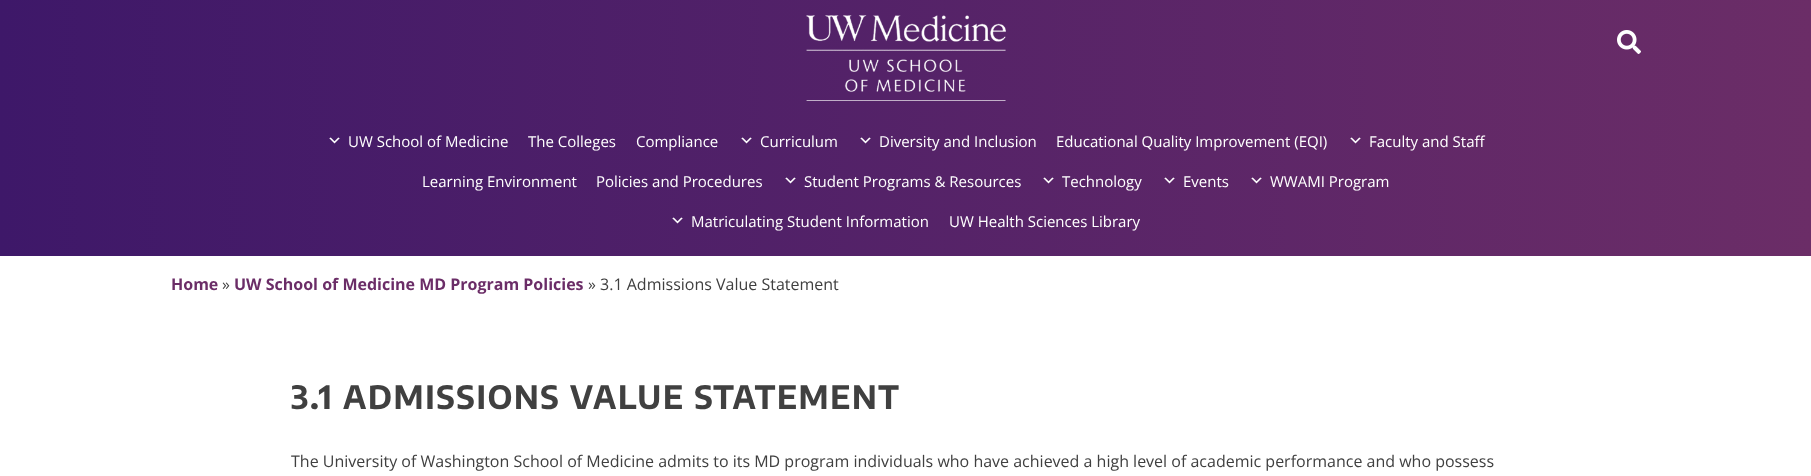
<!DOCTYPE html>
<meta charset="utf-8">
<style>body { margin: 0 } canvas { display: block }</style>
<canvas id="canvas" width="1811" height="476"></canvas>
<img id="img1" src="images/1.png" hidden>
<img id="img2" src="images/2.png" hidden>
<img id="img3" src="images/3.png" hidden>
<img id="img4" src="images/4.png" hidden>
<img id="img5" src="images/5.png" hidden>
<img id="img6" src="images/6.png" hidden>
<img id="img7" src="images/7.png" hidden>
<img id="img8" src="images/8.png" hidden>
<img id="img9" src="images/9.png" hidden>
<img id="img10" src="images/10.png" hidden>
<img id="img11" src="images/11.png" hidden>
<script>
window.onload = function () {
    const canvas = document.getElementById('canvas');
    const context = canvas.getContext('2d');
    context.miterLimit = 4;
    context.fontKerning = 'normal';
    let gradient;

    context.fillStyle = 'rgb(255, 255, 255)';
    context.fillRect(0, 0, 1811, 476);
    gradient = context.createLinearGradient(0, 128, 1811, 128);
    gradient.addColorStop(0, 'rgb(62, 24, 105)');
    gradient.addColorStop(1, 'rgb(107, 45, 103)');
    context.fillStyle = gradient;
    context.fillRect(0, 0, 1811, 256);
    context.drawImage(document.getElementById('img1'), 806, 15, 200, 86);
    context.drawImage(document.getElementById('img2'), 1617, 30, 24, 24);
    context.drawImage(document.getElementById('img3'), 329, 137, 11, 7);
    context.drawImage(document.getElementById('img4'), 741, 137, 11, 7);
    context.drawImage(document.getElementById('img5'), 860, 137, 11, 7);
    context.drawImage(document.getElementById('img6'), 1350, 137, 11, 7);
    context.drawImage(document.getElementById('img7'), 785, 177, 11, 7);
    context.drawImage(document.getElementById('img8'), 1043, 177, 11, 7);
    context.drawImage(document.getElementById('img9'), 1164, 177, 11, 7);
    context.drawImage(document.getElementById('img10'), 1251, 177, 11, 7);
    context.drawImage(document.getElementById('img11'), 672, 217, 11, 7);
    context.font = '15px Open Sans';
    context.fillStyle = 'rgb(255, 255, 255)';
    context.fillText('UW School of Medicine', 348, 147);
    context.fillText('The Colleges', 528, 147);
    context.fillText('Compliance', 636, 147);
    context.fillText('Curriculum', 760, 147);
    context.fillText('Diversity and Inclusion', 879, 147);
    context.fillText('Educational Quality Improvement (EQI)', 1056, 147);
    context.fillText('Faculty and Staff', 1369, 147);
    context.fillText('Learning Environment', 422, 187);
    context.fillText('Policies and Procedures', 596, 187);
    context.fillText('Student Programs & Resources', 804, 187);
    context.fillText('Technology', 1062, 187);
    context.fillText('Events', 1183, 187);
    context.fillText('WWAMI Program', 1270, 187);
    context.fillText('Matriculating Student Information', 691, 227);
    context.fillText('UW Health Sciences Library', 949, 227);
    context.font = 'bold 16px Open Sans';
    context.fillStyle = 'rgb(107, 45, 103)';
    context.fillText('Home', 171, 290);
    context.font = '16px Open Sans';
    context.fillStyle = 'rgb(64, 64, 64)';
    context.fillText('»', 222, 290);
    context.font = 'bold 16px Open Sans';
    context.fillStyle = 'rgb(107, 45, 103)';
    context.fillText('UW School of Medicine MD Program Policies', 234, 290);
    context.font = '16px Open Sans';
    context.fillStyle = 'rgb(64, 64, 64)';
    context.fillText('» 3.1 Admissions Value Statement', 588, 290);
    context.letterSpacing = '1.6px';
    context.font = 'bold 32px Encode Sans Condensed';
    context.fillText('3.1 ADMISSIONS VALUE STATEMENT', 291, 409);
    context.letterSpacing = '0px';
    context.font = '16px Open Sans';
    context.fillText('The University of Washington School of Medicine admits to its MD program individuals who have achieved a high level of academic performance and who possess', 291, 467);
};
</script>
